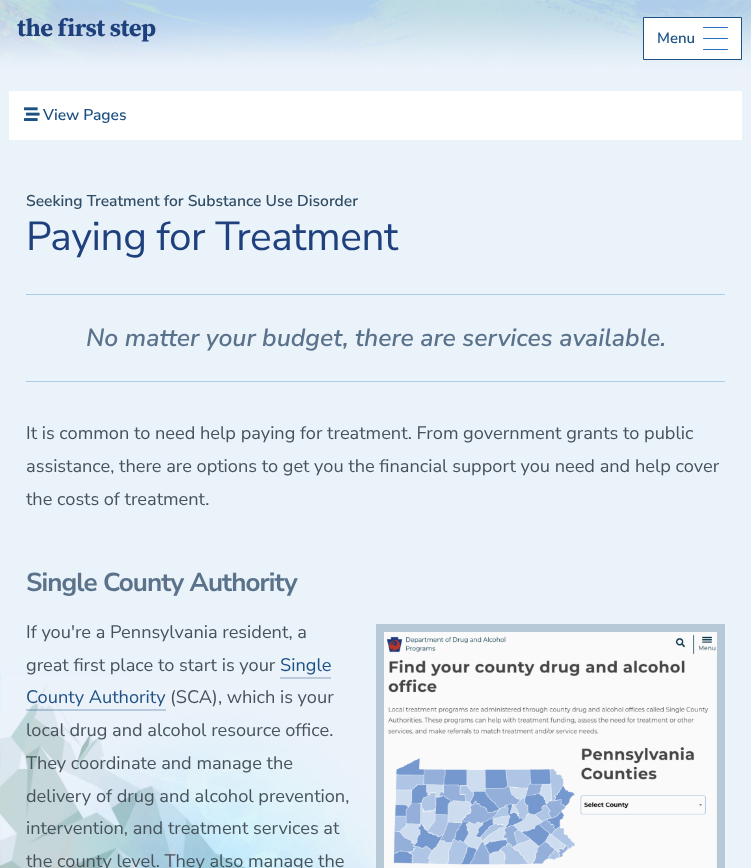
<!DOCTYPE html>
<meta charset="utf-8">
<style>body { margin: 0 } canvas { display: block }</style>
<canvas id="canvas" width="751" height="868"></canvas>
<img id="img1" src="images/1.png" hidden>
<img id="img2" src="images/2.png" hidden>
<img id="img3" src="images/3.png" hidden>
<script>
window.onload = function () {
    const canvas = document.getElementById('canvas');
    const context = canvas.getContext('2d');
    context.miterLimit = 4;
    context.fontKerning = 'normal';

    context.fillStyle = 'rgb(234, 242, 250)';
    context.fillRect(0, 0, 751, 868);
    context.drawImage(document.getElementById('img1'), 0, 0, 751, 868);
    context.fillStyle = 'rgb(255, 255, 255)';
    context.beginPath();
    context.rect(643.5, 17.5, 98, 42);
    context.fill();
    context.strokeStyle = 'rgb(29, 81, 131)';
    context.stroke();
    context.fillStyle = 'rgb(38, 110, 192)';
    context.beginPath();
    context.roundRect(703, 38, 25, 1, 0.5);
    context.fill();
    context.beginPath();
    context.roundRect(703, 49, 25, 1, 0.5);
    context.fill();
    context.beginPath();
    context.roundRect(703, 27, 25, 1, 0.5);
    context.fill();
    context.fillStyle = 'rgb(255, 255, 255)';
    context.fillRect(9, 91, 733, 49);
    context.drawImage(document.getElementById('img2'), 24, 107, 16, 14);
    context.fillStyle = 'rgb(171, 203, 235)';
    context.fillRect(26, 294, 699, 1);
    context.fillRect(26, 381, 699, 1);
    context.fillStyle = 'rgb(184, 202, 220)';
    context.fillRect(280, 677, 51, 2);
    context.fillStyle = 'rgba(29, 81, 131, 0.25)';
    context.fillRect(26, 709, 140, 2);
    context.strokeStyle = 'rgb(183, 201, 215)';
    context.lineWidth = 8;
    context.strokeRect(380, 628, 341, 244);
    context.drawImage(document.getElementById('img3'), 384, 632, 333, 236);
    context.letterSpacing = '-0.4px';
    context.font = 'bold 24.7px Source Serif Pro';
    context.fillStyle = 'rgb(30, 64, 124)';
    context.fillText('the first step', 17, 36);
    context.letterSpacing = '0px';
    context.font = '600 15px Nunito Sans';
    context.fillStyle = 'rgb(29, 81, 131)';
    context.fillText('Menu', 657, 43);
    context.font = '600 15.6px Nunito Sans';
    context.fillText('View Pages', 43, 120);
    context.fillStyle = 'rgb(49, 77, 100)';
    context.fillText('Seeking Treatment for Substance Use Disorder', 26, 206);
    context.letterSpacing = '-0.4px';
    context.font = '40.5px Nunito Sans';
    context.fillStyle = 'rgb(30, 64, 124)';
    context.fillText('Paying for Treatment', 26, 250);
    context.letterSpacing = '0px';
    context.font = 'italic 600 24.7px Nunito Sans';
    context.fillStyle = 'rgb(90, 114, 138)';
    context.fillText('No matter your budget, there are services available.', 86, 346);
    context.font = '18.2px Nunito Sans';
    context.fillStyle = 'rgb(71, 83, 91)';
    context.fillText('It is common to need help paying for treatment. From government grants to public', 26, 439);
    context.fillText('assistance, there are options to get you the financial support you need and help cover', 26, 472);
    context.fillText('the costs of treatment.', 26, 505);
    context.letterSpacing = '-0.9px';
    context.font = 'bold 26px Nunito Sans';
    context.fillStyle = 'rgb(90, 114, 138)';
    context.fillText('Single County Authority', 26, 591);
    context.letterSpacing = '0px';
    context.font = '18.2px Nunito Sans';
    context.fillStyle = 'rgb(71, 83, 91)';
    context.fillText('If you\'re a Pennsylvania resident, a', 26, 638);
    context.fillText('great first place to start is your', 26, 671);
    context.fillStyle = 'rgb(29, 81, 131)';
    context.fillText('Single', 280, 671);
    context.fillText('County Authority', 26, 703);
    context.fillStyle = 'rgb(71, 83, 91)';
    context.fillText('(SCA), which is your', 170, 703);
    context.fillText('local drug and alcohol resource office.', 26, 736);
    context.fillText('They coordinate and manage the', 26, 769);
    context.fillText('delivery of drug and alcohol prevention,', 26, 802);
    context.fillText('intervention, and treatment services at', 26, 834);
    context.fillText('the county level. They also manage the', 26, 867);
};
</script>
